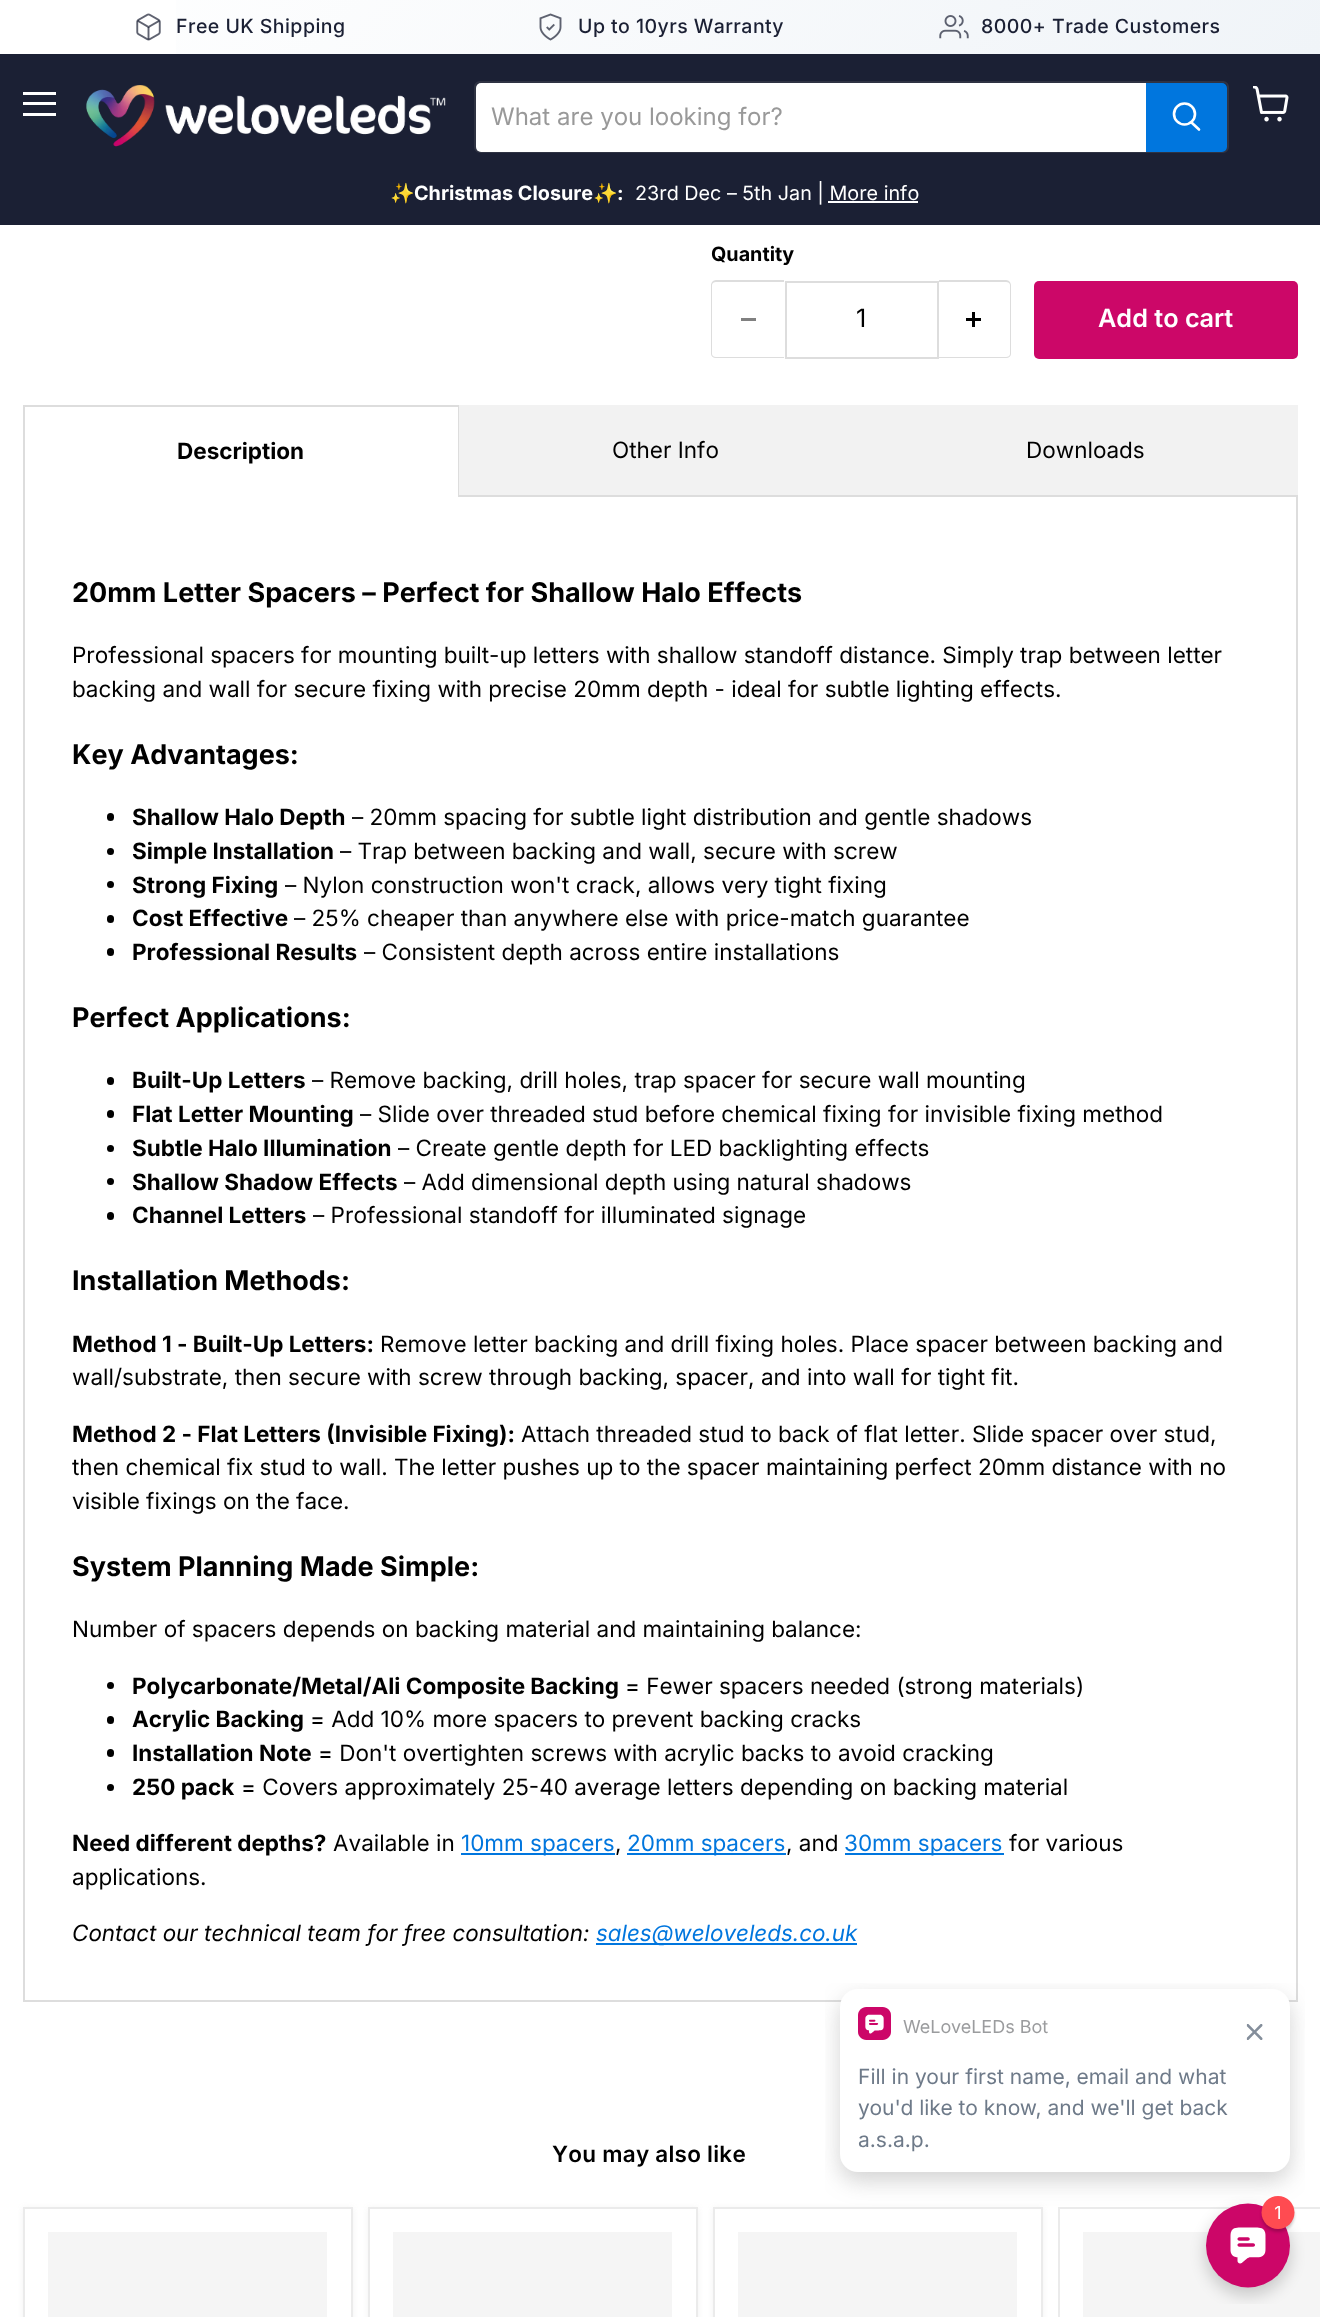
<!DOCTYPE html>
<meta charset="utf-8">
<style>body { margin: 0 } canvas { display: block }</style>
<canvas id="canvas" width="1320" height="2317"></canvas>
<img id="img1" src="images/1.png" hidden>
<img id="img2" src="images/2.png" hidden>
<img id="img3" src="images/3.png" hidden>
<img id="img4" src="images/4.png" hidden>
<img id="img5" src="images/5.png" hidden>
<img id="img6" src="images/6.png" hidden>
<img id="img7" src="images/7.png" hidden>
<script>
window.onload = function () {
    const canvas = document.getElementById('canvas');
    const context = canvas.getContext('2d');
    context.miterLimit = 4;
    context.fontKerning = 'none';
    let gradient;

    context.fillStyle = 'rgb(255, 255, 255)';
    context.fillRect(0, 0, 1320, 2317);
    context.fillStyle = 'rgb(27, 32, 52)';
    context.fillRect(0, 54, 1320, 171);
    gradient = context.createLinearGradient(316, -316, 1004, 370);
    gradient.addColorStop(0, 'rgb(255, 255, 255)');
    gradient.addColorStop(1, 'rgb(240, 244, 248)');
    context.fillStyle = gradient;
    context.fillRect(176, 0, 1144, 54);
    context.drawImage(document.getElementById('img1'), 136, 13, 25, 28);
    context.drawImage(document.getElementById('img2'), 539, 13, 23, 28);
    context.drawImage(document.getElementById('img3'), 939, 15, 30, 24);
    context.fillStyle = 'rgb(255, 255, 255)';
    context.fillRect(23, 92, 33, 3);
    context.fillRect(23, 102, 33, 3);
    context.fillRect(23, 113, 33, 3);
    context.drawImage(document.getElementById('img4'), 86, 85, 360, 62);
    context.beginPath();
    context.roundRect(475, 82, 753, 70, 5);
    context.strokeStyle = 'rgba(128, 128, 128, 0.2)';
    context.lineWidth = 2;
    context.stroke();
    context.beginPath();
    context.roundRect(476, 83, 670, 69, [5, 0, 0, 5]);
    context.fill();
    context.fillStyle = 'rgb(0, 118, 222)';
    context.beginPath();
    context.roundRect(1147, 84, 79, 67, [0, 4, 4, 0]);
    context.fill();
    context.strokeStyle = 'rgb(0, 118, 222)';
    context.stroke();
    context.beginPath();
    context.moveTo(1199, 129.5);
    context.lineTo(1191.5, 122.5);
    context.strokeStyle = 'rgb(255, 255, 255)';
    context.lineWidth = 2.6;
    context.lineCap = 'round';
    context.stroke();
    context.beginPath();
    context.arc(1184.5, 114, 10.5, 0, 2 * Math.PI);
    context.stroke();
    context.fillStyle = 'rgb(255, 255, 255)';
    context.fillRect(828, 201, 90, 2);
    context.drawImage(document.getElementById('img5'), 1253, 86, 36, 36);
    context.fillStyle = 'rgb(221, 221, 221)';
    context.beginPath();
    context.moveTo(716, 280);
    context.lineTo(784, 280);
    context.lineTo(784, 358);
    context.lineTo(716, 358);
    context.bezierCurveTo(713, 358, 711, 356, 711, 354);
    context.lineTo(711, 285);
    context.bezierCurveTo(711, 283, 713, 280, 716, 280);
    context.closePath();
    context.moveTo(716, 282);
    context.lineTo(784, 282);
    context.lineTo(784, 357);
    context.lineTo(716, 357);
    context.bezierCurveTo(714, 357, 712, 356, 712, 354);
    context.lineTo(712, 285);
    context.bezierCurveTo(712, 283, 714, 282, 716, 282);
    context.closePath();
    context.fill('evenodd');
    context.fillStyle = 'rgb(128, 128, 128)';
    context.fillRect(741, 318, 15, 3);
    context.strokeStyle = 'rgb(221, 221, 221)';
    context.lineWidth = 2;
    context.strokeRect(786, 282, 152, 76);
    context.fillStyle = 'rgb(221, 221, 221)';
    context.beginPath();
    context.moveTo(939, 280);
    context.lineTo(1006, 280);
    context.bezierCurveTo(1009, 280, 1011, 283, 1011, 285);
    context.lineTo(1011, 354);
    context.bezierCurveTo(1011, 356, 1009, 358, 1006, 358);
    context.lineTo(939, 358);
    context.closePath();
    context.moveTo(939, 282);
    context.lineTo(1006, 282);
    context.bezierCurveTo(1008, 282, 1010, 283, 1010, 285);
    context.lineTo(1010, 354);
    context.bezierCurveTo(1010, 356, 1008, 357, 1006, 357);
    context.lineTo(939, 357);
    context.closePath();
    context.fill('evenodd');
    context.drawImage(document.getElementById('img6'), 966, 312, 15, 15);
    context.fillStyle = 'rgb(204, 7, 104)';
    context.beginPath();
    context.roundRect(1034, 281, 264, 78, 5);
    context.fill();
    context.fillStyle = 'rgb(221, 221, 221)';
    context.fillRect(23, 405, 436, 2);
    context.fillRect(458, 405, 1, 92);
    context.fillRect(23, 405, 2, 92);
    context.fillStyle = 'rgb(242, 242, 242)';
    context.fillRect(459, 405, 839, 90);
    context.fillStyle = 'rgb(221, 221, 221)';
    context.fillRect(459, 495, 839, 2);
    context.fillRect(1296, 497, 2, 1504);
    context.fillRect(23, 2000, 1275, 2);
    context.fillRect(23, 497, 2, 1504);
    context.fillStyle = 'rgb(0, 0, 0)';
    context.beginPath();
    context.roundRect(107, 813, 7, 8, 3.5);
    context.fill();
    context.beginPath();
    context.arc(110.5, 851.5, 3.5, 0, 2 * Math.PI);
    context.fill();
    context.beginPath();
    context.arc(110.5, 884.5, 3.5, 0, 2 * Math.PI);
    context.fill();
    context.beginPath();
    context.roundRect(107, 915, 7, 8, 3.5);
    context.fill();
    context.beginPath();
    context.roundRect(107, 948, 7, 8, 3.5);
    context.fill();
    context.beginPath();
    context.roundRect(107, 1077, 7, 8, 3.5);
    context.fill();
    context.beginPath();
    context.roundRect(107, 1110, 7, 8, 3.5);
    context.fill();
    context.beginPath();
    context.arc(110.5, 1148.5, 3.5, 0, 2 * Math.PI);
    context.fill();
    context.beginPath();
    context.arc(110.5, 1181.5, 3.5, 0, 2 * Math.PI);
    context.fill();
    context.beginPath();
    context.roundRect(107, 1212, 7, 8, 3.5);
    context.fill();
    context.beginPath();
    context.arc(110.5, 1685.5, 3.5, 0, 2 * Math.PI);
    context.fill();
    context.beginPath();
    context.roundRect(107, 1716, 7, 8, 3.5);
    context.fill();
    context.beginPath();
    context.roundRect(107, 1749, 7, 8, 3.5);
    context.fill();
    context.beginPath();
    context.arc(110.5, 1787.5, 3.5, 0, 2 * Math.PI);
    context.fill();
    context.fillStyle = 'rgb(0, 118, 222)';
    context.fillRect(461, 1853, 154, 2);
    context.fillRect(627, 1853, 159, 2);
    context.fillRect(845, 1853, 159, 2);
    context.fillRect(596, 1943, 261, 2);
    context.fillStyle = 'rgba(128, 128, 128, 0.11)';
    context.filter = 'blur(3px)';
    context.beginPath();
    context.rect(23, 2208, 330, 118);
    context.fill();
    context.filter = 'none';
    context.fillStyle = 'rgb(255, 255, 255)';
    context.beginPath();
    context.rect(24, 2208, 328, 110);
    context.fill();
    context.strokeStyle = 'rgb(235, 235, 235)';
    context.stroke();
    context.fillStyle = 'rgb(245, 245, 245)';
    context.fillRect(48, 2232, 279, 85);
    context.fillStyle = 'rgba(128, 128, 128, 0.11)';
    context.filter = 'blur(3px)';
    context.beginPath();
    context.rect(368, 2208, 330, 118);
    context.fill();
    context.filter = 'none';
    context.fillStyle = 'rgb(255, 255, 255)';
    context.beginPath();
    context.rect(369, 2208, 328, 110);
    context.fill();
    context.stroke();
    context.fillStyle = 'rgb(245, 245, 245)';
    context.fillRect(393, 2232, 279, 85);
    context.fillStyle = 'rgba(128, 128, 128, 0.11)';
    context.filter = 'blur(3px)';
    context.beginPath();
    context.rect(713, 2208, 330, 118);
    context.fill();
    context.filter = 'none';
    context.fillStyle = 'rgb(255, 255, 255)';
    context.beginPath();
    context.rect(714, 2208, 328, 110);
    context.fill();
    context.stroke();
    context.fillStyle = 'rgb(245, 245, 245)';
    context.fillRect(738, 2232, 279, 85);
    context.strokeRect(1059, 2208, 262, 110);
    context.fillRect(1083, 2232, 237, 85);
    context.drawImage(document.getElementById('img7'), 825, 1983, 480, 321);
    context.letterSpacing = '0.45px';
    context.font = '500 19.5px Inter';
    context.fillStyle = 'rgb(27, 32, 52)';
    context.fillText('Free UK Shipping', 176, 33);
    context.fillText('Up to 10yrs Warranty', 578, 33);
    context.fillText('8000+ Trade Customers', 981, 33);
    context.letterSpacing = '0px';
    context.font = '24px Inter';
    context.fillStyle = 'rgb(153, 153, 153)';
    context.fillText('What are you looking for?', 491, 125);
    context.font = 'bold 19.75px Noto Color Emoji';
    context.fillStyle = 'rgb(255, 255, 255)';
    context.fillText('✨', 390, 200);
    context.font = 'bold 19.75px Inter';
    context.fillText('Christmas Closure', 414, 200);
    context.font = 'bold 19.75px Noto Color Emoji';
    context.fillText('✨', 593, 200);
    context.font = 'bold 19.75px Inter';
    context.fillText(':', 617, 200);
    context.font = '19.75px Inter';
    context.fillText('23rd Dec – 5th Jan | More info', 635, 200);
    context.font = 'bold 19.75px Inter';
    context.fillStyle = 'rgb(0, 0, 0)';
    context.fillText('Quantity', 711, 261);
    context.font = '25.25px Inter';
    context.fillText('1', 856, 327);
    context.font = '600 25.25px Inter';
    context.fillStyle = 'rgb(255, 255, 255)';
    context.fillText('Add to cart', 1098, 327);
    context.font = 'bold 22.5px Inter';
    context.fillStyle = 'rgb(0, 0, 0)';
    context.fillText('Description', 177, 459);
    context.font = '22.5px Inter';
    context.fillText('Other Info', 612, 458);
    context.fillText('Downloads', 1026, 458);
    context.font = 'bold 27px Inter';
    context.fillText('20mm Letter Spacers – Perfect for Shallow Halo Effects', 72, 602);
    context.font = '22.5px Inter';
    context.fillText('Professional spacers for mounting built-up letters with shallow standoff distance. Simply trap between letter', 72, 663);
    context.fillText('backing and wall for secure fixing with precise 20mm depth - ideal for subtle lighting effects.', 72, 697);
    context.font = 'bold 27px Inter';
    context.fillText('Key Advantages:', 72, 764);
    context.font = 'bold 22.5px Inter';
    context.fillText('Shallow Halo Depth', 132, 825);
    context.font = '22.5px Inter';
    context.fillText('– 20mm spacing for subtle light distribution and gentle shadows', 352, 825);
    context.font = 'bold 22.5px Inter';
    context.fillText('Simple Installation', 132, 859);
    context.font = '22.5px Inter';
    context.fillText('– Trap between backing and wall, secure with screw', 340, 859);
    context.font = 'bold 22.5px Inter';
    context.fillText('Strong Fixing', 132, 893);
    context.font = '22.5px Inter';
    context.fillText('– Nylon construction won\'t crack, allows very tight fixing', 285, 893);
    context.font = 'bold 22.5px Inter';
    context.fillText('Cost Effective', 132, 926);
    context.font = '22.5px Inter';
    context.fillText('– 25% cheaper than anywhere else with price-match guarantee', 294, 926);
    context.font = 'bold 22.5px Inter';
    context.fillText('Professional Results', 132, 960);
    context.font = '22.5px Inter';
    context.fillText('– Consistent depth across entire installations', 364, 960);
    context.font = 'bold 27px Inter';
    context.fillText('Perfect Applications:', 72, 1027);
    context.font = 'bold 22.5px Inter';
    context.fillText('Built-Up Letters', 132, 1088);
    context.font = '22.5px Inter';
    context.fillText('– Remove backing, drill holes, trap spacer for secure wall mounting', 312, 1088);
    context.font = 'bold 22.5px Inter';
    context.fillText('Flat Letter Mounting', 132, 1122);
    context.font = '22.5px Inter';
    context.fillText('– Slide over threaded stud before chemical fixing for invisible fixing method', 360, 1122);
    context.font = 'bold 22.5px Inter';
    context.fillText('Subtle Halo Illumination', 132, 1156);
    context.font = '22.5px Inter';
    context.fillText('– Create gentle depth for LED backlighting effects', 398, 1156);
    context.font = 'bold 22.5px Inter';
    context.fillText('Shallow Shadow Effects', 132, 1190);
    context.font = '22.5px Inter';
    context.fillText('– Add dimensional depth using natural shadows', 404, 1190);
    context.font = 'bold 22.5px Inter';
    context.fillText('Channel Letters', 132, 1223);
    context.font = '22.5px Inter';
    context.fillText('– Professional standoff for illuminated signage', 313, 1223);
    context.font = 'bold 27px Inter';
    context.fillText('Installation Methods:', 72, 1290);
    context.font = 'bold 22.5px Inter';
    context.fillText('Method 1 - Built-Up Letters:', 72, 1352);
    context.font = '22.5px Inter';
    context.fillText('Remove letter backing and drill fixing holes. Place spacer between backing and', 380, 1352);
    context.fillText('wall/substrate, then secure with screw through backing, spacer, and into wall for tight fit.', 72, 1385);
    context.font = 'bold 22.5px Inter';
    context.fillText('Method 2 - Flat Letters (Invisible Fixing):', 72, 1442);
    context.font = '22.5px Inter';
    context.fillText('Attach threaded stud to back of flat letter. Slide spacer over stud,', 521, 1442);
    context.fillText('then chemical fix stud to wall. The letter pushes up to the spacer maintaining perfect 20mm distance with no', 72, 1475);
    context.fillText('visible fixings on the face.', 72, 1509);
    context.font = 'bold 27px Inter';
    context.fillText('System Planning Made Simple:', 72, 1576);
    context.font = '22.5px Inter';
    context.fillText('Number of spacers depends on backing material and maintaining balance:', 72, 1637);
    context.font = 'bold 22.5px Inter';
    context.fillText('Polycarbonate/Metal/Ali Composite Backing', 132, 1694);
    context.font = '22.5px Inter';
    context.fillText('= Fewer spacers needed (strong materials)', 625, 1694);
    context.font = 'bold 22.5px Inter';
    context.fillText('Acrylic Backing', 132, 1727);
    context.font = '22.5px Inter';
    context.fillText('= Add 10% more spacers to prevent backing cracks', 310, 1727);
    context.font = 'bold 22.5px Inter';
    context.fillText('Installation Note', 132, 1761);
    context.font = '22.5px Inter';
    context.fillText('= Don\'t overtighten screws with acrylic backs to avoid cracking', 318, 1761);
    context.font = 'bold 22.5px Inter';
    context.fillText('250 pack', 132, 1795);
    context.font = '22.5px Inter';
    context.fillText('= Covers approximately 25-40 average letters depending on backing material', 241, 1795);
    context.font = 'bold 22.5px Inter';
    context.fillText('Need different depths?', 72, 1851);
    context.font = '22.5px Inter';
    context.fillText('Available in', 333, 1851);
    context.fillStyle = 'rgb(0, 118, 222)';
    context.fillText('10mm spacers', 461, 1851);
    context.fillStyle = 'rgb(0, 0, 0)';
    context.fillText(',', 615, 1851);
    context.fillStyle = 'rgb(0, 118, 222)';
    context.fillText('20mm spacers', 627, 1851);
    context.fillStyle = 'rgb(0, 0, 0)';
    context.fillText(', and', 786, 1851);
    context.fillStyle = 'rgb(0, 118, 222)';
    context.fillText('30mm spacers', 844, 1851);
    context.fillStyle = 'rgb(0, 0, 0)';
    context.fillText('for various', 1009, 1851);
    context.fillText('applications.', 72, 1885);
    context.font = 'italic 22.5px Inter';
    context.fillText('Contact our technical team for free consultation:', 72, 1941);
    context.fillStyle = 'rgb(0, 118, 222)';
    context.fillText('sales@weloveleds.co.uk', 596, 1941);
    context.letterSpacing = '0.25px';
    context.font = '600 22.5px Inter';
    context.fillStyle = 'rgb(0, 0, 0)';
    context.fillText('You may also like', 552, 2162);
};
</script>
